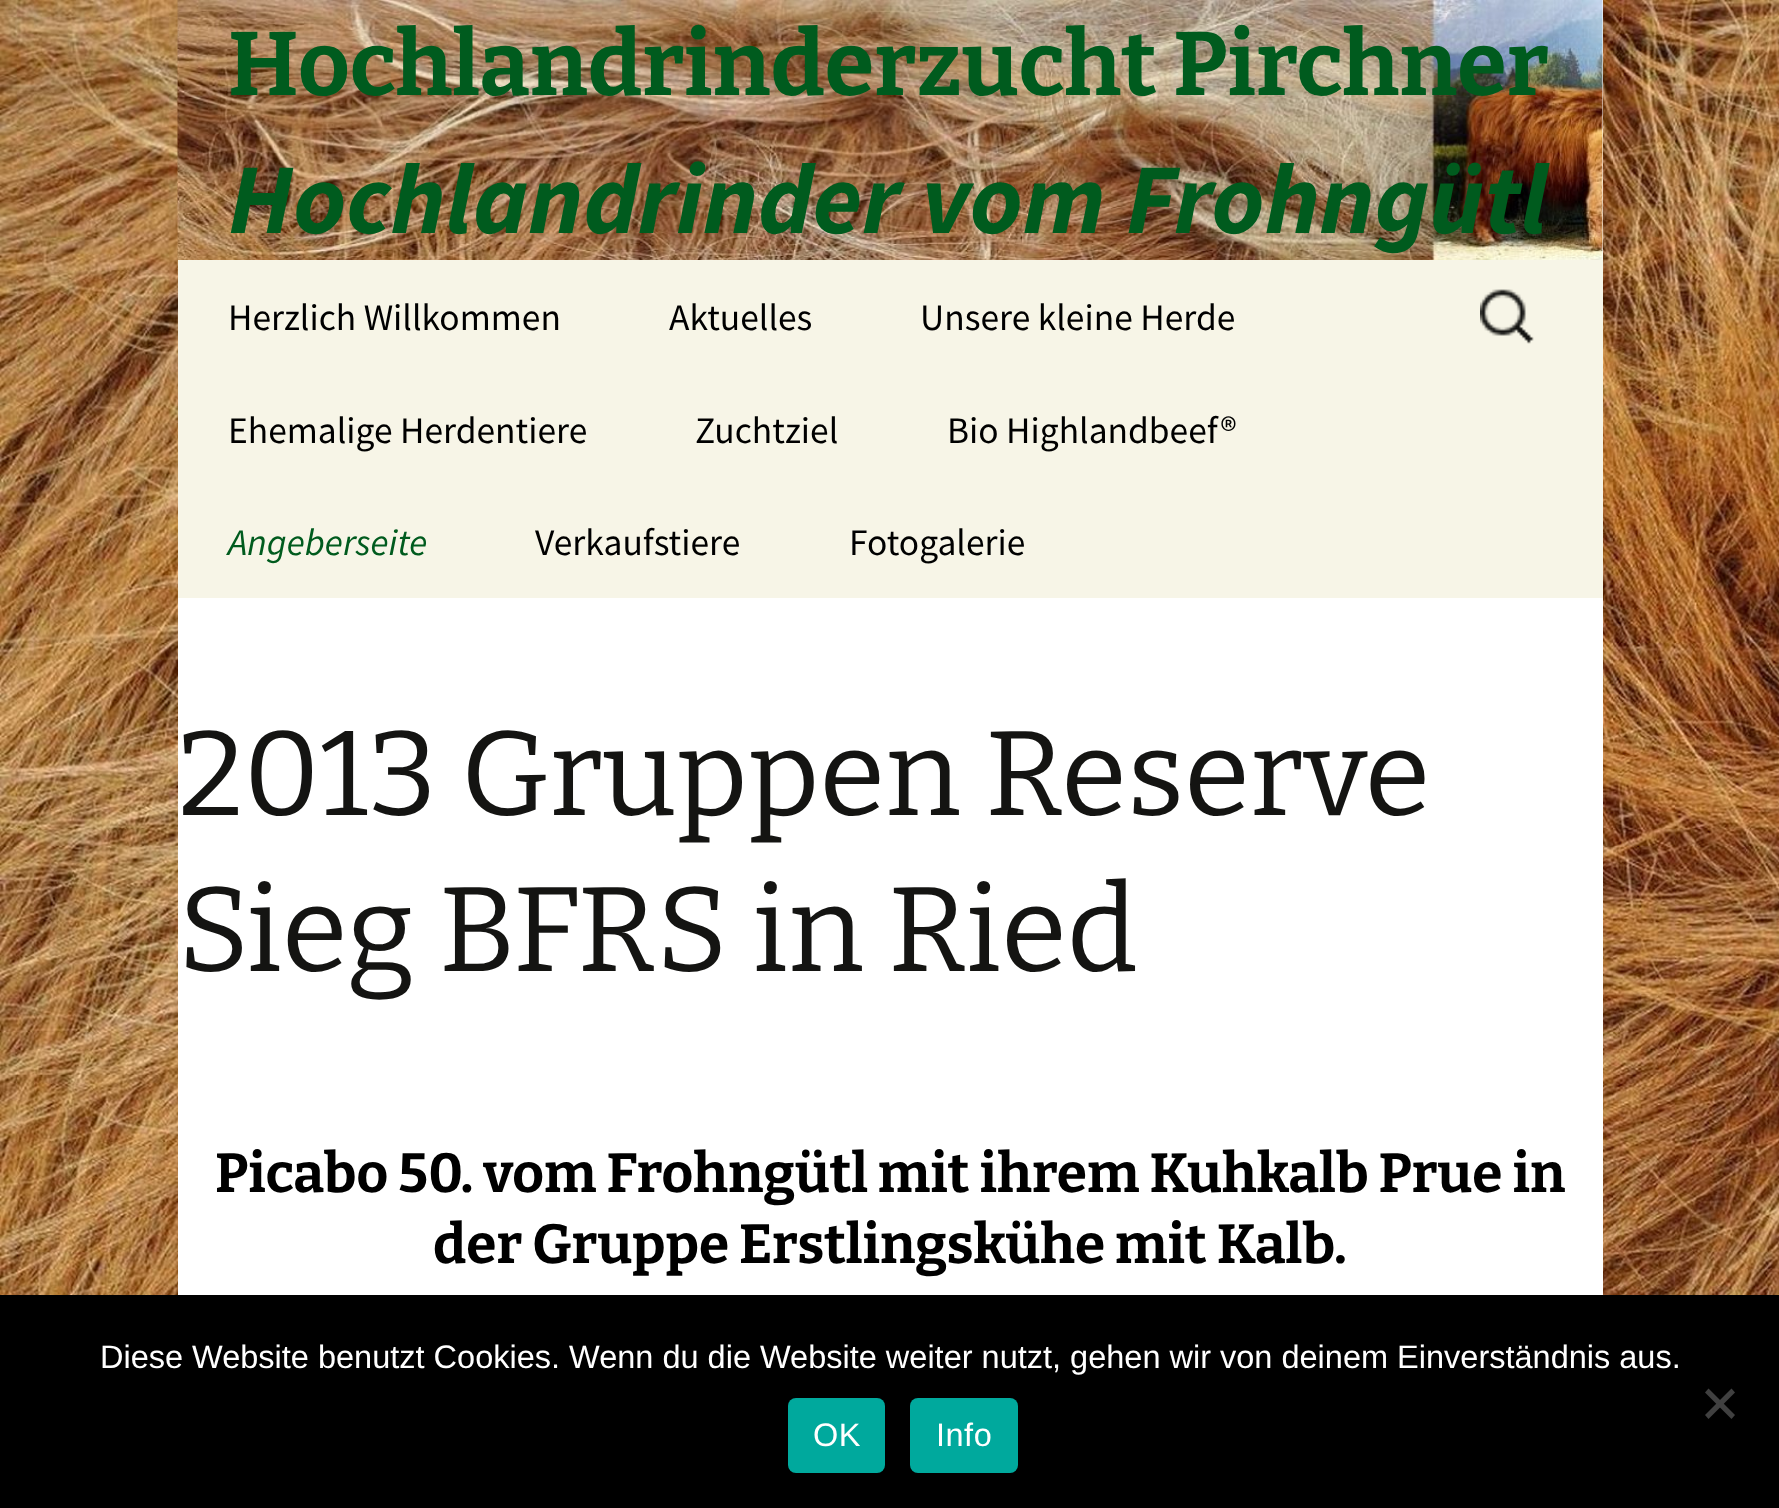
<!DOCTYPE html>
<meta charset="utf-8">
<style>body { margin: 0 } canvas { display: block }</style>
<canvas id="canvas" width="1779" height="1508"></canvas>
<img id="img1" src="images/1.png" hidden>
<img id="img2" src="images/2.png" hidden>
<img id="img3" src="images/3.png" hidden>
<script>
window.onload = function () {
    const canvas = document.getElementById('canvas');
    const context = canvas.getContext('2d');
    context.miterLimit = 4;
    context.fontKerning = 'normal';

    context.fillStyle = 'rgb(255, 255, 255)';
    context.fillRect(0, 0, 1779, 1508);
    context.drawImage(document.getElementById('img1'), 0, 0, 1779, 1295);
    context.fillRect(178, 0, 1425, 1295);
    context.drawImage(document.getElementById('img2'), 177, 0, 1426, 275);
    context.fillStyle = 'rgb(247, 245, 231)';
    context.fillRect(178, 260, 1425, 338);
    context.drawImage(document.getElementById('img3'), 1480, 289, 54, 55);
    context.fillStyle = 'rgb(0, 0, 0)';
    context.fillRect(0, 1295, 1779, 213);
    context.fillStyle = 'rgb(64, 64, 64)';
    context.beginPath();
    context.moveTo(1731.5, 1388.5);
    context.lineTo(1735, 1392.5);
    context.lineTo(1708.5, 1419);
    context.lineTo(1705, 1415);
    context.closePath();
    context.fill();
    context.beginPath();
    context.moveTo(1705, 1392.5);
    context.lineTo(1708.5, 1388.5);
    context.lineTo(1735, 1415);
    context.lineTo(1731.5, 1419);
    context.closePath();
    context.fill();
    context.fillStyle = 'rgb(0, 169, 157)';
    context.beginPath();
    context.roundRect(788, 1398, 97, 75, 8);
    context.fill();
    context.beginPath();
    context.roundRect(910, 1398, 108, 75, 8);
    context.fill();
    context.font = '100 90px Bitter';
    context.fillStyle = 'rgb(0, 91, 30)';
    context.fillText('Hochlandrinderzucht Pirchner', 228, 95);
    context.font = 'italic bold 100px Source Sans Pro';
    context.fillText('Hochlandrinder vom Frohngütl', 228, 233);
    context.font = '37.5px Source Sans Pro';
    context.fillStyle = 'rgb(0, 0, 0)';
    context.fillText('Herzlich Willkommen', 228, 330);
    context.fillText('Aktuelles', 669, 330);
    context.fillText('Unsere kleine Herde', 920, 330);
    context.fillText('Ehemalige Herdentiere', 228, 443);
    context.fillText('Zuchtziel', 695, 443);
    context.fillText('Bio Highlandbeef®', 947, 443);
    context.font = 'italic 37.5px Source Sans Pro';
    context.fillStyle = 'rgb(0, 91, 30)';
    context.fillText('Angeberseite', 228, 555);
    context.font = '37.5px Source Sans Pro';
    context.fillStyle = 'rgb(0, 0, 0)';
    context.fillText('Verkaufstiere', 535, 555);
    context.fillText('Fotogalerie', 849, 555);
    context.font = '100 120px "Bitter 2"';
    context.fillStyle = 'rgb(20, 20, 18)';
    context.fillText('2013 Gruppen Reserve', 178, 815);
    context.fillText('Sieg BFRS in Ried', 178, 971);
    context.font = '100 55px Bitter';
    context.fillStyle = 'rgb(0, 0, 0)';
    context.fillText('Picabo 50. vom Frohngütl mit ihrem Kuhkalb Prue in', 215, 1192);
    context.fillText('der Gruppe Erstlingskühe mit Kalb.', 433, 1263);
    context.font = '32.5px Liberation Sans';
    context.fillStyle = 'rgb(255, 255, 255)';
    context.fillText('Diese Website benutzt Cookies. Wenn du die Website weiter nutzt, gehen wir von deinem Einverständnis aus.', 100, 1368);
    context.letterSpacing = '0.5px';
    context.fillText('OK', 813, 1446);
    context.fillText('Info', 936, 1446);
};
</script>
